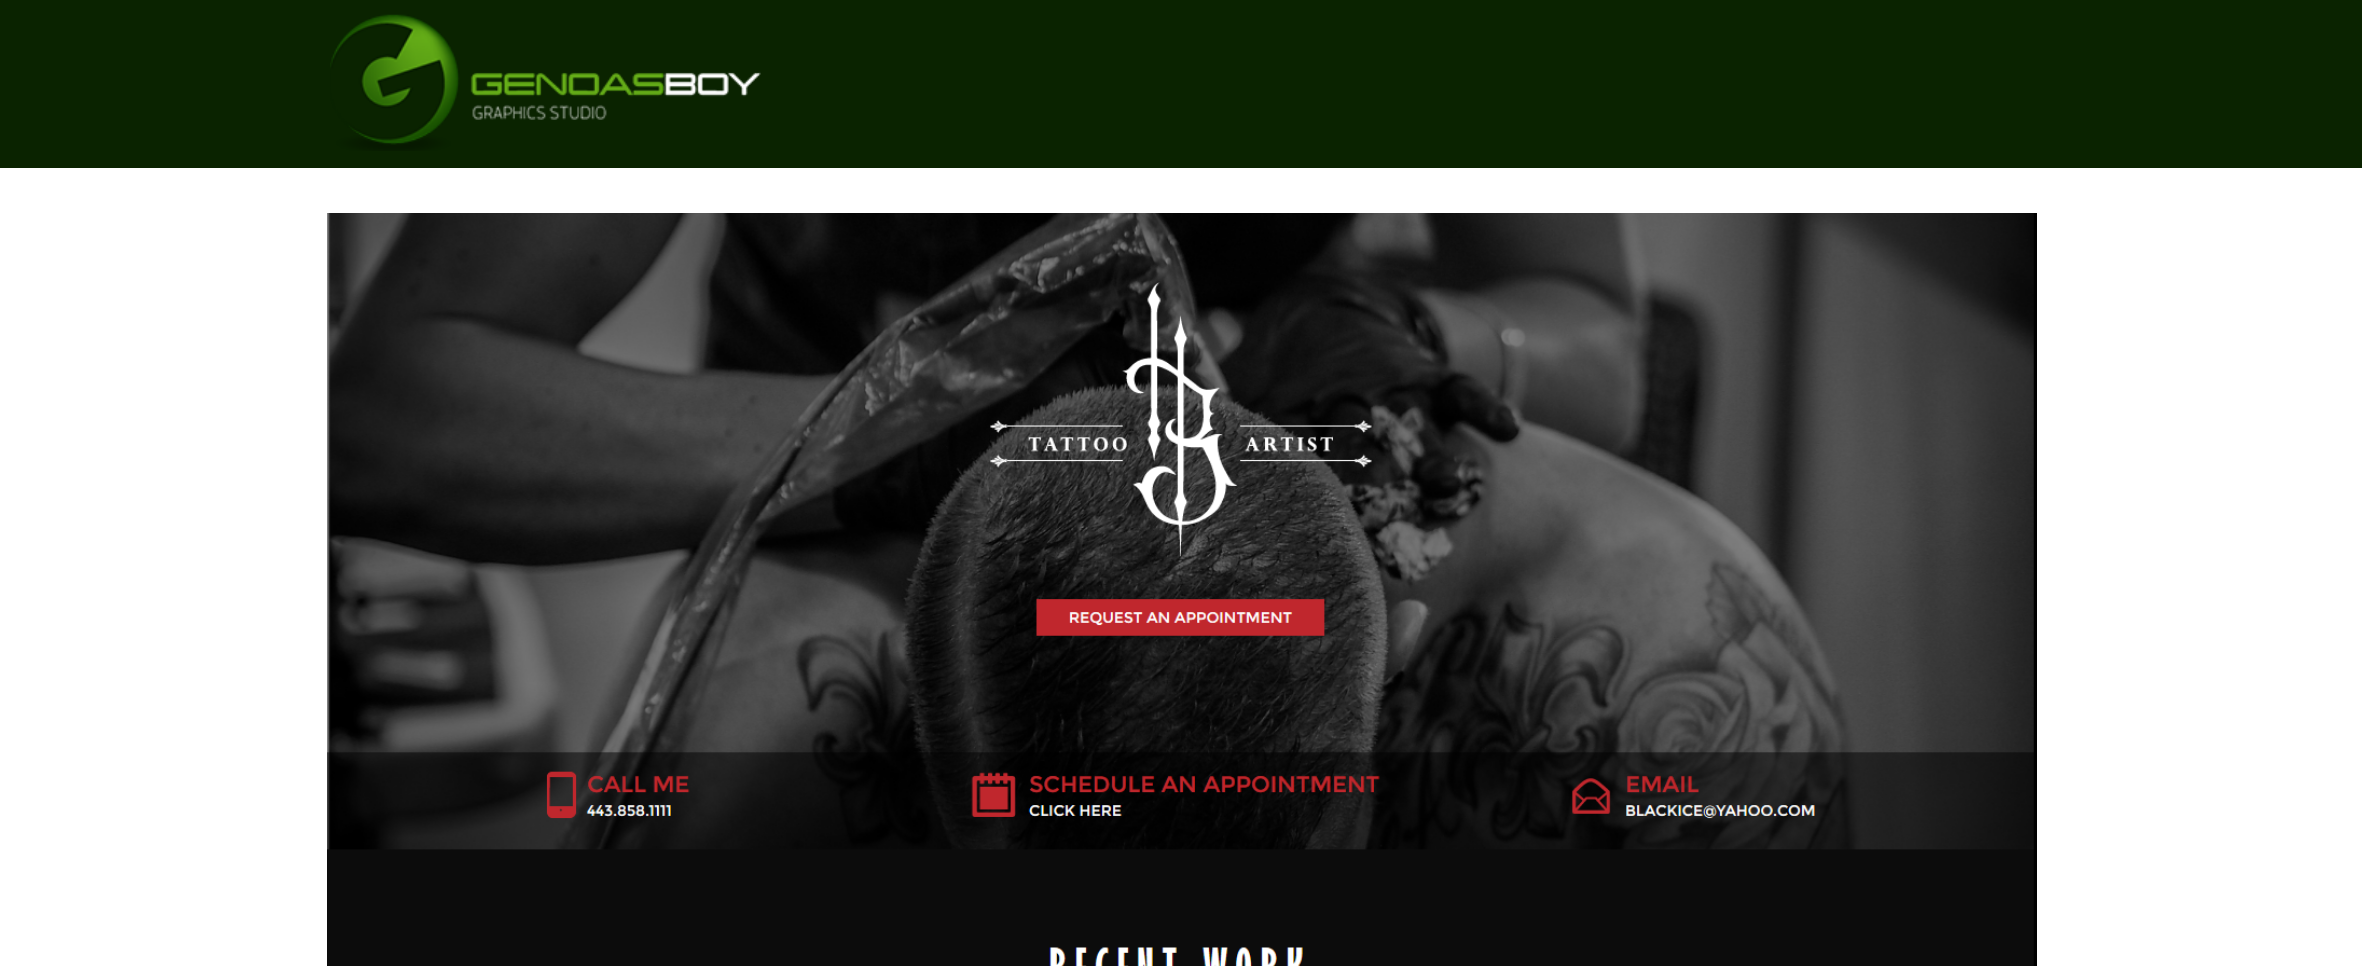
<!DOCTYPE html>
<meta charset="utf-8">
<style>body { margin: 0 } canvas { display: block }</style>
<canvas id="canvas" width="2362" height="966"></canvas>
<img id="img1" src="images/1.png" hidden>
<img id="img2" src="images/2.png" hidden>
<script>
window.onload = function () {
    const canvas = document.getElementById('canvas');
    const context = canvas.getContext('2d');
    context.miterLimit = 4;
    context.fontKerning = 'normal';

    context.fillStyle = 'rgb(255, 255, 255)';
    context.fillRect(0, 0, 2362, 966);
    context.fillStyle = 'rgb(10, 35, 0)';
    context.fillRect(0, 0, 2362, 168);
    context.drawImage(document.getElementById('img1'), 330, 14, 431, 137);
    context.drawImage(document.getElementById('img2'), 327, 213, 1710, 753);
};
</script>
